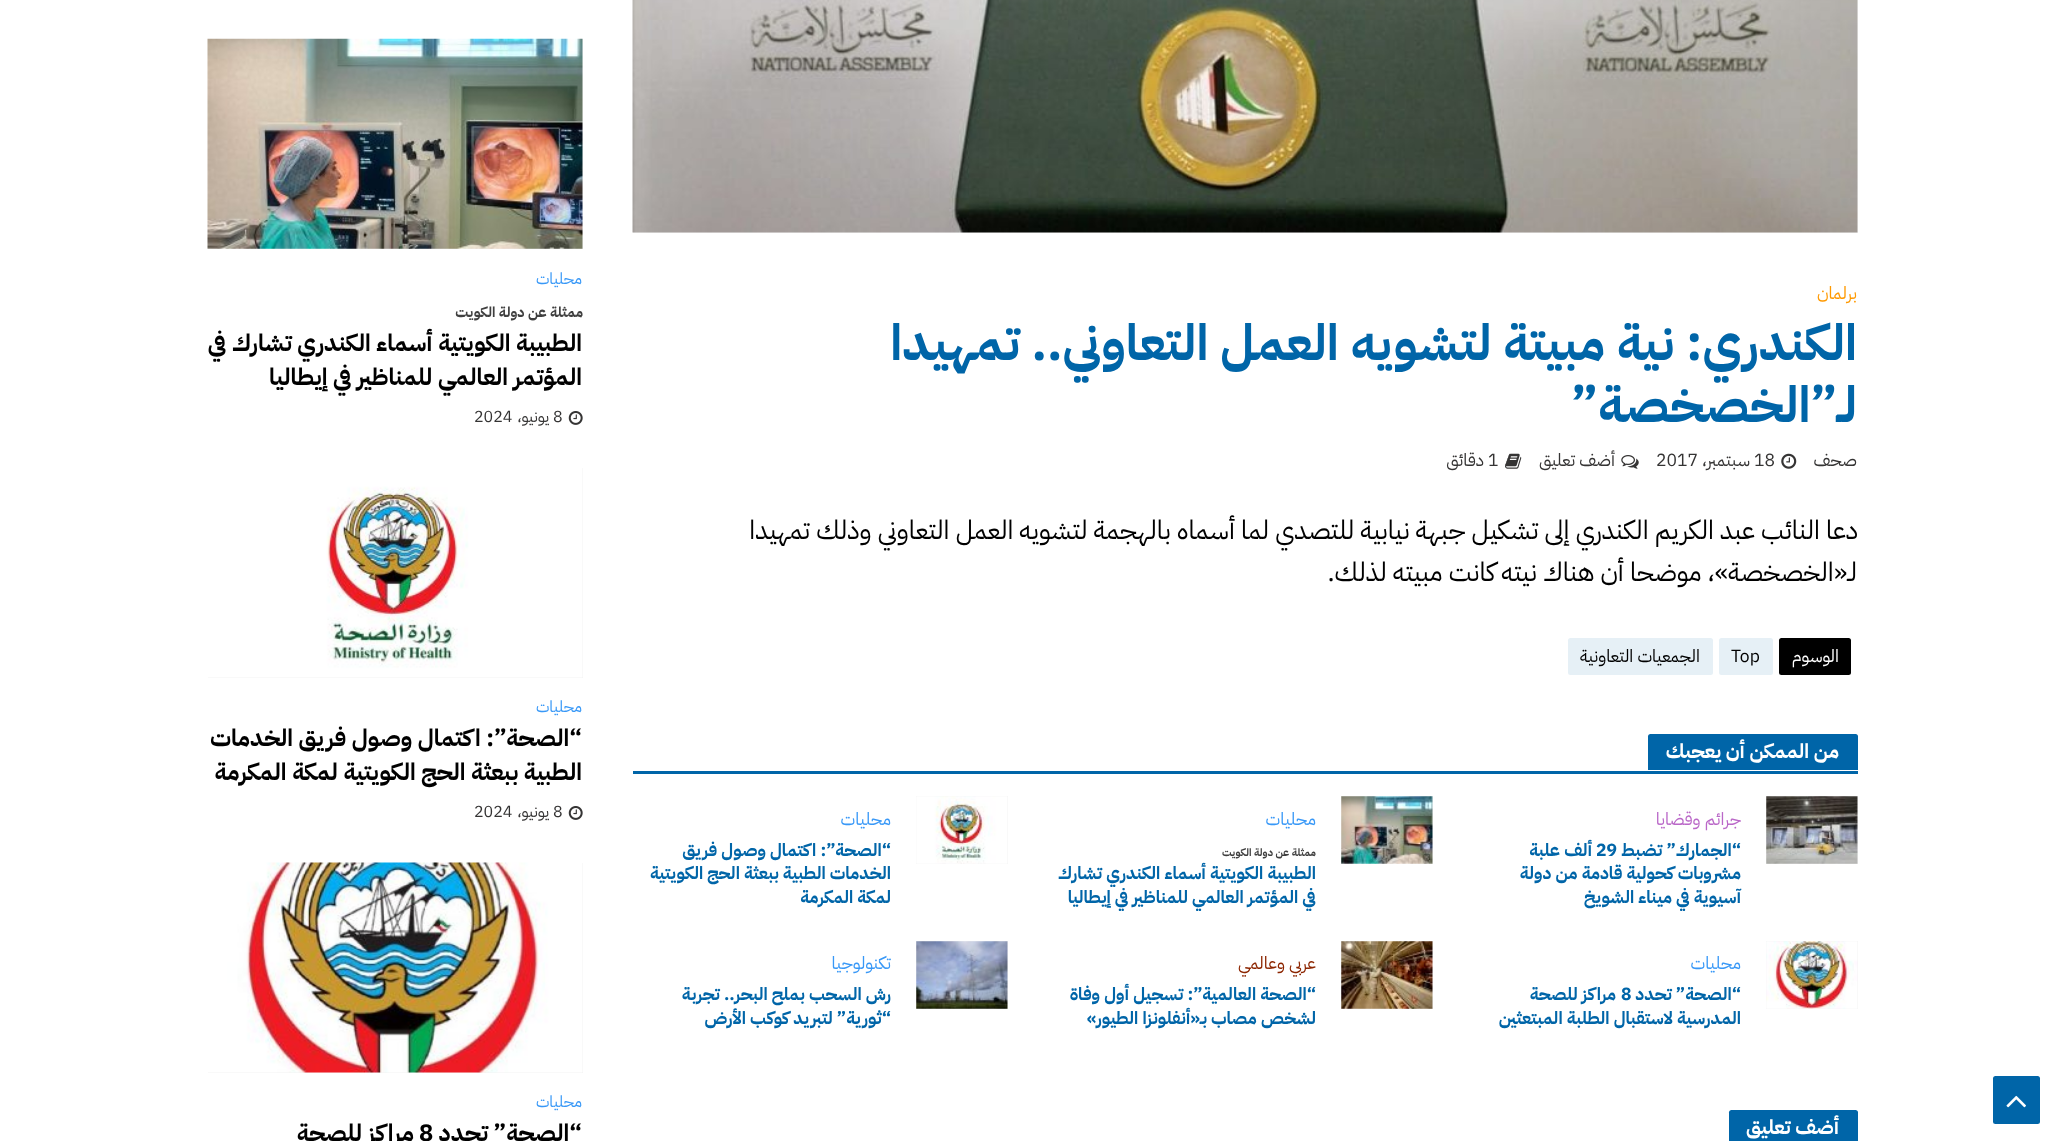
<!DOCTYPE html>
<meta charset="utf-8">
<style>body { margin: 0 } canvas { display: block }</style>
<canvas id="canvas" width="2064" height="1141"></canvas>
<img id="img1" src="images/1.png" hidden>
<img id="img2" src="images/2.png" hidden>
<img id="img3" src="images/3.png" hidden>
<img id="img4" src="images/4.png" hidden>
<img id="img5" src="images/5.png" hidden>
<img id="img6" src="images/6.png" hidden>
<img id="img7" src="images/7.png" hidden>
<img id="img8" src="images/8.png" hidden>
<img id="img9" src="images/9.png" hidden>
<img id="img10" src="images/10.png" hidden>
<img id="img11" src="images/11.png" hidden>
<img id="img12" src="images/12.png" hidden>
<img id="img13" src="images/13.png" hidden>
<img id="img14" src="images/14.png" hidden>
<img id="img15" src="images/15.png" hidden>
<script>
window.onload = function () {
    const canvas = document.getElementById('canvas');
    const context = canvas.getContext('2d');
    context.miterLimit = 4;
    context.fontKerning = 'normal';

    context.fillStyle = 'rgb(255, 255, 255)';
    context.fillRect(0, 0, 2064, 1141);
    context.fillStyle = 'rgb(0, 101, 168)';
    context.beginPath();
    context.roundRect(1993, 1076, 47, 48, 2.5);
    context.fill();
    context.drawImage(document.getElementById('img1'), 2006, 1095, 20, 13);
    context.fillStyle = 'rgb(243, 243, 243)';
    context.fillRect(633, 0, 1225, 233);
    context.drawImage(document.getElementById('img2'), 632, 0, 1226, 233);
    context.drawImage(document.getElementById('img3'), 1781, 453, 16, 16);
    context.drawImage(document.getElementById('img4'), 1621, 455, 18, 14);
    context.drawImage(document.getElementById('img5'), 1505, 453, 17, 16);
    context.fillStyle = 'rgb(0, 0, 0)';
    context.beginPath();
    context.roundRect(1779, 638, 72, 37, 2.5);
    context.fill();
    context.fillStyle = 'rgb(230, 240, 246)';
    context.beginPath();
    context.roundRect(1719, 638, 54, 37, 2.5);
    context.fill();
    context.beginPath();
    context.roundRect(1568, 638, 145, 37, 2.5);
    context.fill();
    context.fillStyle = 'rgb(0, 101, 168)';
    context.beginPath();
    context.roundRect(1648, 734, 210, 36, [2.5, 2.5, 0, 0]);
    context.fill();
    context.fillRect(633, 771, 1225, 3);
    context.fillStyle = 'rgb(242, 242, 242)';
    context.fillRect(1766, 796, 92, 68);
    context.drawImage(document.getElementById('img6'), 1766, 796, 92, 68);
    context.fillRect(1341, 796, 92, 68);
    context.drawImage(document.getElementById('img7'), 1341, 796, 92, 68);
    context.fillRect(916, 796, 92, 68);
    context.drawImage(document.getElementById('img8'), 916, 796, 92, 68);
    context.fillRect(1766, 941, 92, 68);
    context.drawImage(document.getElementById('img9'), 1766, 941, 92, 68);
    context.fillRect(1341, 941, 92, 68);
    context.drawImage(document.getElementById('img10'), 1341, 941, 92, 68);
    context.fillRect(916, 941, 92, 68);
    context.drawImage(document.getElementById('img11'), 916, 941, 92, 68);
    context.fillStyle = 'rgb(0, 101, 168)';
    context.beginPath();
    context.moveTo(1731.5, 1110);
    context.lineTo(1855.5, 1110);
    context.bezierCurveTo(1857, 1110, 1858, 1111, 1858, 1112.5);
    context.lineTo(1858, 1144);
    context.lineTo(1729, 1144);
    context.lineTo(1729, 1112.5);
    context.bezierCurveTo(1729, 1111, 1730, 1110, 1731.5, 1110);
    context.closePath();
    context.fill();
    context.fillStyle = 'rgb(242, 242, 242)';
    context.fillRect(208, 39, 375, 210);
    context.drawImage(document.getElementById('img12'), 207, 38, 376, 211);
    context.drawImage(document.getElementById('img13'), 568, 411, 15, 14);
    context.fillRect(208, 468, 375, 210);
    context.drawImage(document.getElementById('img14'), 208, 468, 375, 210);
    context.drawImage(document.getElementById('img13'), 568, 806, 15, 14);
    context.fillRect(208, 863, 375, 210);
    context.drawImage(document.getElementById('img15'), 208, 862, 375, 211);
    context.direction = 'rtl';
    context.font = '17.5px IBM Plex Sans Arabic';
    context.fillStyle = 'rgb(255, 153, 0)';
    context.fillText('برلمان', 1857, 299);
    context.font = 'bold 50px IBM Plex Sans Arabic';
    context.fillStyle = 'rgb(0, 101, 168)';
    context.fillText('الكندري: نية مبيتة لتشويه العمل التعاوني.. تمهيدا', 1857, 360);
    context.fillText('لـ”الخصخصة”', 1857, 422);
    context.font = '17.5px IBM Plex Sans Arabic';
    context.fillStyle = 'rgb(53, 52, 52)';
    context.fillText('صحف', 1857, 466);
    context.direction = 'ltr';
    context.fillText('18', 1754, 466);
    context.direction = 'rtl';
    context.fillText('سبتمبر،', 1750, 466);
    context.direction = 'ltr';
    context.fillText('2017', 1656, 466);
    context.direction = 'rtl';
    context.fillText('أضف تعليق', 1615, 466);
    context.direction = 'ltr';
    context.fillText('1', 1488, 466);
    context.direction = 'rtl';
    context.fillText('دقائق', 1484, 466);
    context.font = '26.25px IBM Plex Sans Arabic';
    context.fillStyle = 'rgb(0, 0, 0)';
    context.fillText('دعا النائب عبد الكريم الكندري إلى تشكيل جبهة نيابية للتصدي لما أسماه بالهجمة لتشويه العمل التعاوني وذلك تمهيدا', 1858, 539);
    context.fillText('لـ«الخصخصة»، موضحا أن هناك نيته كانت مبيته لذلك.', 1857, 581);
    context.font = '17.5px IBM Plex Sans Arabic';
    context.fillStyle = 'rgb(255, 255, 255)';
    context.fillText('الوسوم', 1839, 662);
    context.direction = 'ltr';
    context.fillStyle = 'rgb(0, 0, 0)';
    context.fillText('Top', 1731, 662);
    context.direction = 'rtl';
    context.fillText('الجمعيات التعاونية', 1700, 662);
    context.font = 'bold 20px IBM Plex Sans Arabic';
    context.fillStyle = 'rgb(255, 255, 255)';
    context.fillText('من الممكن أن يعجبك', 1839, 758);
    context.font = '17.5px IBM Plex Sans Arabic';
    context.fillStyle = 'rgb(186, 104, 200)';
    context.fillText('جرائم وقضايا', 1741, 825);
    context.font = 'bold 17.5px IBM Plex Sans Arabic';
    context.fillStyle = 'rgb(0, 101, 168)';
    context.fillText('“الجمارك” تضبط', 1741, 856);
    context.direction = 'ltr';
    context.fillText('29', 1596, 856);
    context.direction = 'rtl';
    context.fillText('ألف علبة', 1592, 856);
    context.fillText('مشروبات كحولية قادمة من دولة', 1741, 879);
    context.fillText('آسيوية في ميناء الشويخ', 1741, 903);
    context.font = '17.5px IBM Plex Sans Arabic';
    context.fillStyle = 'rgb(56, 152, 247)';
    context.fillText('محليات', 1316, 825);
    context.font = 'bold 10.5px IBM Plex Sans Arabic';
    context.fillStyle = 'rgb(63, 63, 63)';
    context.fillText('ممثلة عن دولة الكويت', 1316, 856);
    context.font = 'bold 17.5px IBM Plex Sans Arabic';
    context.fillStyle = 'rgb(0, 101, 168)';
    context.fillText('الطبيبة الكويتية أسماء الكندري تشارك', 1316, 879);
    context.fillText('في المؤتمر العالمي للمناظير في إيطاليا', 1316, 903);
    context.font = '17.5px IBM Plex Sans Arabic';
    context.fillStyle = 'rgb(56, 152, 247)';
    context.fillText('محليات', 891, 825);
    context.font = 'bold 17.5px IBM Plex Sans Arabic';
    context.fillStyle = 'rgb(0, 101, 168)';
    context.fillText('“الصحة”: اكتمال وصول فريق', 891, 856);
    context.fillText('الخدمات الطبية ببعثة الحج الكويتية', 891, 879);
    context.fillText('لمكة المكرمة', 891, 903);
    context.font = '17.5px IBM Plex Sans Arabic';
    context.fillStyle = 'rgb(56, 152, 247)';
    context.fillText('محليات', 1741, 969);
    context.font = 'bold 17.5px IBM Plex Sans Arabic';
    context.fillStyle = 'rgb(0, 101, 168)';
    context.fillText('“الصحة” تحدد', 1741, 1000);
    context.direction = 'ltr';
    context.fillText('8', 1621, 1000);
    context.direction = 'rtl';
    context.fillText('مراكز للصحة', 1616, 1000);
    context.fillText('المدرسية لاستقبال الطلبة المبتعثين', 1741, 1024);
    context.font = '17.5px IBM Plex Sans Arabic';
    context.fillStyle = 'rgb(140, 37, 0)';
    context.fillText('عربي وعالمي', 1316, 969);
    context.font = 'bold 17.5px IBM Plex Sans Arabic';
    context.fillStyle = 'rgb(0, 101, 168)';
    context.fillText('“الصحة العالمية”: تسجيل أول وفاة', 1316, 1000);
    context.fillText('لشخص مصاب بـ«أنفلونزا الطيور»', 1316, 1024);
    context.font = '17.5px IBM Plex Sans Arabic';
    context.fillStyle = 'rgb(56, 152, 247)';
    context.fillText('تكنولوجيا', 891, 969);
    context.font = 'bold 17.5px IBM Plex Sans Arabic';
    context.fillStyle = 'rgb(0, 101, 168)';
    context.fillText('رش السحب بملح البحر.. تجربة', 891, 1000);
    context.fillText('“ثورية” لتبريد كوكب الأرض', 891, 1024);
    context.font = 'bold 20px IBM Plex Sans Arabic';
    context.fillStyle = 'rgb(255, 255, 255)';
    context.fillText('أضف تعليق', 1839, 1134);
    context.font = '16px IBM Plex Sans Arabic';
    context.fillStyle = 'rgb(56, 152, 247)';
    context.fillText('محليات', 582, 284);
    context.font = 'bold 14.25px IBM Plex Sans Arabic';
    context.fillStyle = 'rgb(63, 63, 63)';
    context.fillText('ممثلة عن دولة الكويت', 583, 317);
    context.font = 'bold 23.75px IBM Plex Sans Arabic';
    context.fillStyle = 'rgb(0, 0, 0)';
    context.fillText('الطبيبة الكويتية أسماء الكندري تشارك في', 582, 351);
    context.fillText('المؤتمر العالمي للمناظير في إيطاليا', 582, 385);
    context.direction = 'ltr';
    context.font = '16px IBM Plex Sans Arabic';
    context.fillStyle = 'rgb(53, 52, 52)';
    context.fillText('8', 553, 422);
    context.direction = 'rtl';
    context.fillText('يونيو،', 549, 422);
    context.direction = 'ltr';
    context.fillText('2024', 474, 422);
    context.direction = 'rtl';
    context.fillStyle = 'rgb(56, 152, 247)';
    context.fillText('محليات', 582, 712);
    context.font = 'bold 23.75px IBM Plex Sans Arabic';
    context.fillStyle = 'rgb(0, 0, 0)';
    context.fillText('“الصحة”: اكتمال وصول فريق الخدمات', 582, 746);
    context.fillText('الطبية ببعثة الحج الكويتية لمكة المكرمة', 582, 780);
    context.direction = 'ltr';
    context.font = '16px IBM Plex Sans Arabic';
    context.fillStyle = 'rgb(53, 52, 52)';
    context.fillText('8', 553, 817);
    context.direction = 'rtl';
    context.fillText('يونيو،', 549, 817);
    context.direction = 'ltr';
    context.fillText('2024', 474, 817);
    context.direction = 'rtl';
    context.fillStyle = 'rgb(56, 152, 247)';
    context.fillText('محليات', 582, 1107);
    context.font = 'bold 23.75px IBM Plex Sans Arabic';
    context.fillStyle = 'rgb(0, 0, 0)';
    context.fillText('“الصحة” تحدد', 582, 1141);
    context.direction = 'ltr';
    context.fillText('8', 419, 1141);
    context.direction = 'rtl';
    context.fillText('مراكز للصحة', 414, 1141);
};
</script>
